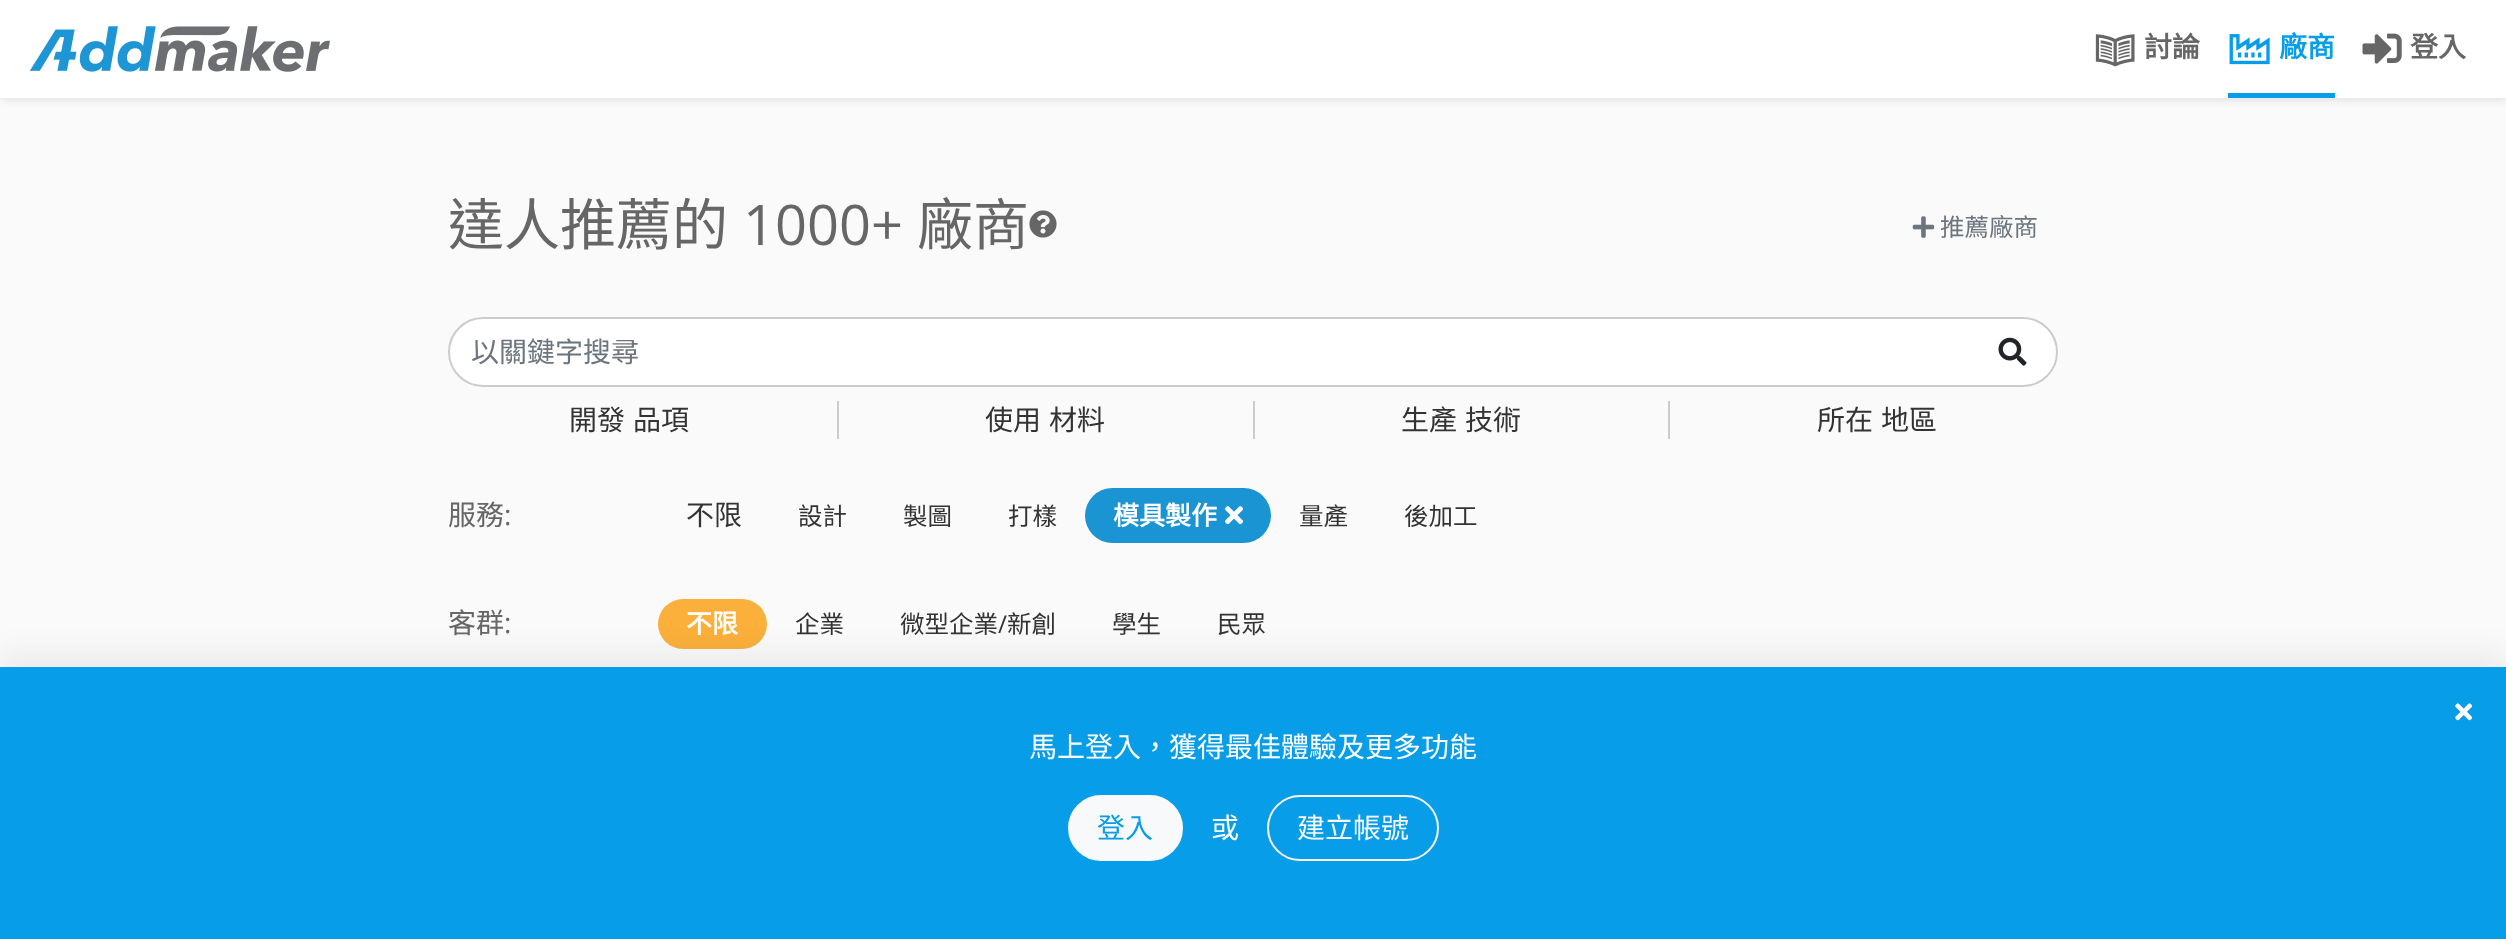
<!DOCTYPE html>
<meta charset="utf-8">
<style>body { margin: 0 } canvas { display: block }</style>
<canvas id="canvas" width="2506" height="939"></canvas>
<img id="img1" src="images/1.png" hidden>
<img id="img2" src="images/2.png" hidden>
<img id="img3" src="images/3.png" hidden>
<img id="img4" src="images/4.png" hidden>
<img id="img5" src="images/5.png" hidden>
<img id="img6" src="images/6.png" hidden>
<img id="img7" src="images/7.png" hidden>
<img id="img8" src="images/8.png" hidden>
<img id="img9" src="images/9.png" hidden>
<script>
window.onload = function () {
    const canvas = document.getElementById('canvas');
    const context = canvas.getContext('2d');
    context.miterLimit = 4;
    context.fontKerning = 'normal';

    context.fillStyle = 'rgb(250, 250, 250)';
    context.fillRect(0, 0, 2506, 939);
    context.fillStyle = 'rgba(0, 0, 0, 0.1)';
    context.filter = 'blur(4.5px)';
    context.beginPath();
    context.rect(2, 2, 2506, 98);
    context.fill();
    context.filter = 'none';
    context.fillStyle = 'rgb(255, 255, 255)';
    context.fillRect(0, 0, 2506, 98);
    context.drawImage(document.getElementById('img1'), 30, 26, 300, 46);
    context.drawImage(document.getElementById('img2'), 2095, 34, 40, 33);
    context.drawImage(document.getElementById('img3'), 2229, 34, 41, 31);
    context.fillStyle = 'rgb(7, 157, 232)';
    context.fillRect(2228, 93, 107, 5);
    context.drawImage(document.getElementById('img4'), 2362, 33, 40, 31);
    context.drawImage(document.getElementById('img5'), 1029, 210, 28, 28);
    context.drawImage(document.getElementById('img6'), 1912, 216, 23, 22);
    context.fillStyle = 'rgb(255, 255, 255)';
    context.beginPath();
    context.roundRect(449, 318, 1608, 68, 34);
    context.fill();
    context.strokeStyle = 'rgb(204, 204, 204)';
    context.lineWidth = 2;
    context.stroke();
    context.drawImage(document.getElementById('img7'), 1998, 337, 29, 29);
    context.fillStyle = 'rgb(204, 204, 204)';
    context.fillRect(837, 401, 2, 38);
    context.fillRect(1253, 401, 2, 38);
    context.fillRect(1668, 401, 2, 38);
    context.fillStyle = 'rgb(27, 148, 211)';
    context.beginPath();
    context.roundRect(1085, 488, 186, 55, 27.5);
    context.fill();
    context.drawImage(document.getElementById('img8'), 1225, 506, 18, 19);
    context.fillStyle = 'rgb(251, 176, 59)';
    context.beginPath();
    context.roundRect(658, 599, 109, 50, 25);
    context.fill();
    context.fillStyle = 'rgba(0, 0, 0, 0.05)';
    context.filter = 'blur(13px)';
    context.beginPath();
    context.rect(0, 649, 2506, 273);
    context.fill();
    context.filter = 'none';
    context.fillStyle = 'rgb(7, 157, 232)';
    context.fillRect(0, 667, 2506, 272);
    context.drawImage(document.getElementById('img9'), 2455, 703, 18, 18);
    context.fillStyle = 'rgb(248, 249, 250)';
    context.beginPath();
    context.roundRect(1069, 796, 113, 64, 32);
    context.fill();
    context.strokeStyle = 'rgb(248, 249, 250)';
    context.stroke();
    context.beginPath();
    context.roundRect(1268, 796, 170, 64, 32);
    context.stroke();
    context.font = 'bold 28px Noto Sans CJK TC';
    context.fillStyle = 'rgb(102, 102, 102)';
    context.fillText('討論', 2144, 57);
    context.fillStyle = 'rgb(7, 157, 232)';
    context.fillText('廠商', 2279, 57);
    context.fillStyle = 'rgb(102, 102, 102)';
    context.fillText('登入', 2410, 57);
    context.font = '56px Noto Sans CJK TC';
    context.fillText('達人推薦的', 448, 245);
    context.font = '56px Open Sans';
    context.fillText('1000+', 743, 245);
    context.font = '56px Noto Sans CJK TC';
    context.fillText('廠商', 917, 245);
    context.font = '24.5px Noto Sans CJK TC';
    context.fillStyle = 'rgb(108, 117, 125)';
    context.fillText('推薦廠商', 1940, 236);
    context.font = '28px Noto Sans CJK TC';
    context.fillText('以關鍵字搜尋', 471, 362);
    context.fillStyle = 'rgb(51, 51, 51)';
    context.fillText('開發', 569, 430);
    context.fillText('品項', 633, 430);
    context.fillText('使用', 985, 430);
    context.fillText('材料', 1049, 430);
    context.fillText('生產', 1401, 430);
    context.fillText('技術', 1465, 430);
    context.fillText('所在', 1817, 430);
    context.fillText('地區', 1881, 430);
    context.fillStyle = 'rgb(102, 102, 102)';
    context.fillText('服務', 448, 525);
    context.font = '28px Open Sans';
    context.fillText(':', 504, 525);
    context.font = '28px Noto Sans CJK TC';
    context.fillStyle = 'rgb(51, 51, 51)';
    context.fillText('不限', 686, 525);
    context.font = '24.5px Noto Sans CJK TC';
    context.fillText('設計', 798, 525);
    context.fillText('製圖', 903, 525);
    context.fillText('打樣', 1008, 525);
    context.font = 'bold 26px Noto Sans CJK TC';
    context.fillStyle = 'rgb(255, 255, 255)';
    context.fillText('模具製作', 1113, 525);
    context.font = '24.5px Noto Sans CJK TC';
    context.fillStyle = 'rgb(51, 51, 51)';
    context.fillText('量產', 1299, 525);
    context.fillText('後加工', 1404, 525);
    context.font = '28px Noto Sans CJK TC';
    context.fillStyle = 'rgb(102, 102, 102)';
    context.fillText('客群', 448, 633);
    context.font = '28px Open Sans';
    context.fillText(':', 504, 633);
    context.font = 'bold 26px Noto Sans CJK TC';
    context.fillStyle = 'rgb(255, 255, 255)';
    context.fillText('不限', 686, 633);
    context.font = '24.5px Noto Sans CJK TC';
    context.fillStyle = 'rgb(51, 51, 51)';
    context.fillText('企業', 795, 633);
    context.fillText('微型企業', 900, 633);
    context.font = '24.5px Open Sans';
    context.fillText('/', 998, 633);
    context.font = '24.5px Noto Sans CJK TC';
    context.fillText('新創', 1007, 633);
    context.fillText('學生', 1112, 633);
    context.fillText('民眾', 1217, 633);
    context.font = '28px Noto Sans CJK TC';
    context.fillStyle = 'rgb(255, 255, 255)';
    context.fillText('馬上登入，獲得最佳體驗及更多功能', 1029, 757);
    context.fillStyle = 'rgb(7, 157, 232)';
    context.fillText('登入', 1097, 838);
    context.fillStyle = 'rgb(255, 255, 255)';
    context.fillText('或', 1211, 838);
    context.fillStyle = 'rgb(248, 249, 250)';
    context.fillText('建立帳號', 1297, 838);
};
</script>
